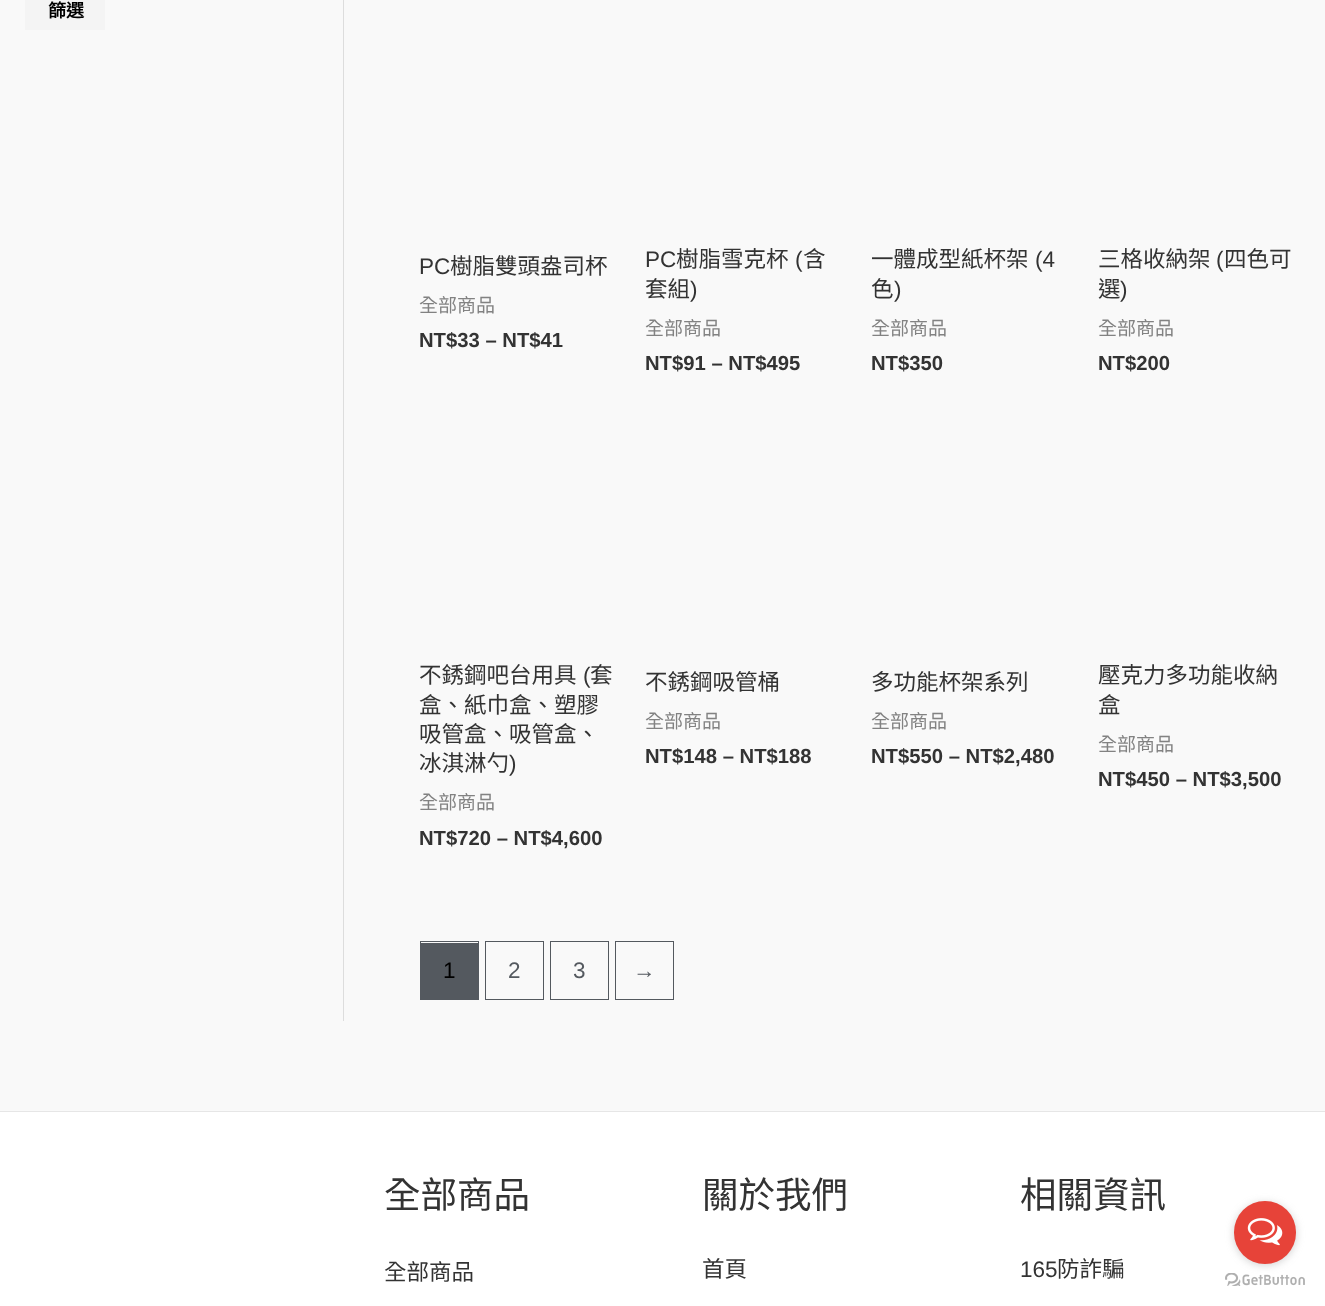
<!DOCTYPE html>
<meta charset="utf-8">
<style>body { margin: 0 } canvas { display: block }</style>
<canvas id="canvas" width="1325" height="1306"></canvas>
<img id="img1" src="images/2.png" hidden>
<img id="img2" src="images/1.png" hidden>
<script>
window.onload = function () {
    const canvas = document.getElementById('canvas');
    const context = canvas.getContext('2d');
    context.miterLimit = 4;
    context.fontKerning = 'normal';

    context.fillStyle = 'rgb(249, 249, 249)';
    context.fillRect(0, 0, 1325, 1306);
    context.fillStyle = 'rgb(244, 244, 244)';
    context.fillRect(25, 0, 80, 30);
    context.fillStyle = 'rgb(221, 221, 221)';
    context.fillRect(343, 0, 1, 1021);
    context.strokeStyle = 'rgb(84, 89, 95)';
    context.strokeRect(420.5, 941.5, 58, 58);
    context.fillStyle = 'rgb(84, 89, 95)';
    context.fillRect(421, 943, 57, 56);
    context.strokeRect(485.5, 941.5, 58, 58);
    context.strokeRect(550.5, 941.5, 58, 58);
    context.strokeRect(615.5, 941.5, 58, 58);
    context.fillStyle = 'rgb(255, 255, 255)';
    context.fillRect(0, 1112, 1325, 194);
    context.fillStyle = 'rgb(230, 230, 230)';
    context.fillRect(0, 1111, 1325, 1);
    context.drawImage(document.getElementById('img1'), 1225, 1273, 80, 13);
    context.fillStyle = 'rgba(136, 136, 136, 0.4)';
    context.filter = 'blur(4.5px)';
    context.beginPath();
    context.roundRect(1234, 1203, 62, 62, 31);
    context.fill();
    context.filter = 'none';
    context.fillStyle = 'rgb(231, 67, 57)';
    context.beginPath();
    context.roundRect(1234, 1201, 62, 63, 31);
    context.fill();
    context.drawImage(document.getElementById('img2'), 1247, 1218, 36, 28);
    context.font = 'bold 18px Noto Sans CJK TC';
    context.fillStyle = 'rgb(0, 0, 0)';
    context.fillText('篩選', 48, 17);
    context.font = '22.5px Liberation Sans';
    context.fillStyle = 'rgb(51, 51, 51)';
    context.fillText('PC', 419, 274);
    context.font = '22.5px Noto Sans CJK TC';
    context.fillText('樹脂雙頭盎司杯', 450, 274);
    context.font = '19px Noto Sans CJK TC';
    context.fillStyle = 'rgb(130, 130, 130)';
    context.fillText('全部商品', 419, 312);
    context.font = 'bold 20.25px Liberation Sans';
    context.fillStyle = 'rgb(51, 51, 51)';
    context.fillText('NT$33 – NT$41', 419, 347);
    context.font = '22.5px Liberation Sans';
    context.fillText('PC', 645, 267);
    context.font = '22.5px Noto Sans CJK TC';
    context.fillText('樹脂雪克杯', 676, 267);
    context.font = '22.5px Liberation Sans';
    context.fillText('(', 795, 267);
    context.font = '22.5px Noto Sans CJK TC';
    context.fillText('含', 803, 267);
    context.fillText('套組', 645, 297);
    context.font = '22.5px Liberation Sans';
    context.fillText(')', 690, 297);
    context.font = '19px Noto Sans CJK TC';
    context.fillStyle = 'rgb(130, 130, 130)';
    context.fillText('全部商品', 645, 335);
    context.font = 'bold 20.25px Liberation Sans';
    context.fillStyle = 'rgb(51, 51, 51)';
    context.fillText('NT$91 – NT$495', 645, 370);
    context.font = '22.5px Noto Sans CJK TC';
    context.fillText('一體成型紙杯架', 871, 267);
    context.font = '22.5px Liberation Sans';
    context.fillText('(4', 1035, 267);
    context.font = '22.5px Noto Sans CJK TC';
    context.fillText('色', 871, 297);
    context.font = '22.5px Liberation Sans';
    context.fillText(')', 894, 297);
    context.font = '19px Noto Sans CJK TC';
    context.fillStyle = 'rgb(130, 130, 130)';
    context.fillText('全部商品', 871, 335);
    context.font = 'bold 20.25px Liberation Sans';
    context.fillStyle = 'rgb(51, 51, 51)';
    context.fillText('NT$350', 871, 370);
    context.font = '22.5px Noto Sans CJK TC';
    context.fillText('三格收納架', 1098, 267);
    context.font = '22.5px Liberation Sans';
    context.fillText('(', 1216, 267);
    context.font = '22.5px Noto Sans CJK TC';
    context.fillText('四色可', 1224, 267);
    context.fillText('選', 1098, 297);
    context.font = '22.5px Liberation Sans';
    context.fillText(')', 1120, 297);
    context.font = '19px Noto Sans CJK TC';
    context.fillStyle = 'rgb(130, 130, 130)';
    context.fillText('全部商品', 1098, 335);
    context.font = 'bold 20.25px Liberation Sans';
    context.fillStyle = 'rgb(51, 51, 51)';
    context.fillText('NT$200', 1098, 370);
    context.font = '22.5px Noto Sans CJK TC';
    context.fillText('不銹鋼吧台用具', 419, 683);
    context.font = '22.5px Liberation Sans';
    context.fillText('(', 583, 683);
    context.font = '22.5px Noto Sans CJK TC';
    context.fillText('套', 590, 683);
    context.fillText('盒、紙巾盒、塑膠', 419, 713);
    context.fillText('吸管盒、吸管盒、', 419, 742);
    context.fillText('冰淇淋勺', 419, 771);
    context.font = '22.5px Liberation Sans';
    context.fillText(')', 509, 771);
    context.font = '19px Noto Sans CJK TC';
    context.fillStyle = 'rgb(130, 130, 130)';
    context.fillText('全部商品', 419, 809);
    context.font = 'bold 20.25px Liberation Sans';
    context.fillStyle = 'rgb(51, 51, 51)';
    context.fillText('NT$720 – NT$4,600', 419, 845);
    context.font = '22.5px Noto Sans CJK TC';
    context.fillText('不銹鋼吸管桶', 645, 690);
    context.font = '19px Noto Sans CJK TC';
    context.fillStyle = 'rgb(130, 130, 130)';
    context.fillText('全部商品', 645, 728);
    context.font = 'bold 20.25px Liberation Sans';
    context.fillStyle = 'rgb(51, 51, 51)';
    context.fillText('NT$148 – NT$188', 645, 763);
    context.font = '22.5px Noto Sans CJK TC';
    context.fillText('多功能杯架系列', 871, 690);
    context.font = '19px Noto Sans CJK TC';
    context.fillStyle = 'rgb(130, 130, 130)';
    context.fillText('全部商品', 871, 728);
    context.font = 'bold 20.25px Liberation Sans';
    context.fillStyle = 'rgb(51, 51, 51)';
    context.fillText('NT$550 – NT$2,480', 871, 763);
    context.font = '22.5px Noto Sans CJK TC';
    context.fillText('壓克力多功能收納', 1098, 683);
    context.fillText('盒', 1098, 713);
    context.font = '19px Noto Sans CJK TC';
    context.fillStyle = 'rgb(130, 130, 130)';
    context.fillText('全部商品', 1098, 751);
    context.font = 'bold 20.25px Liberation Sans';
    context.fillStyle = 'rgb(51, 51, 51)';
    context.fillText('NT$450 – NT$3,500', 1098, 786);
    context.font = '22.5px Liberation Sans';
    context.fillStyle = 'rgb(0, 0, 0)';
    context.fillText('1', 443, 978);
    context.fillStyle = 'rgb(84, 89, 95)';
    context.fillText('2', 508, 978);
    context.fillText('3', 573, 978);
    context.fillText('→', 633, 978);
    context.font = '36.5px Noto Sans CJK TC';
    context.fillStyle = 'rgb(51, 51, 51)';
    context.fillText('全部商品', 384, 1208);
    context.font = '22.5px Noto Sans CJK TC';
    context.fillText('全部商品', 384, 1280);
    context.font = '36.5px Noto Sans CJK TC';
    context.fillText('關於我們', 702, 1208);
    context.font = '22.5px Noto Sans CJK TC';
    context.fillText('首頁', 702, 1277);
    context.font = '36.5px Noto Sans CJK TC';
    context.fillText('相關資訊', 1020, 1208);
    context.font = '22.5px Liberation Sans';
    context.fillText('165', 1020, 1277);
    context.font = '22.5px Noto Sans CJK TC';
    context.fillText('防詐騙', 1057, 1277);
};
</script>
